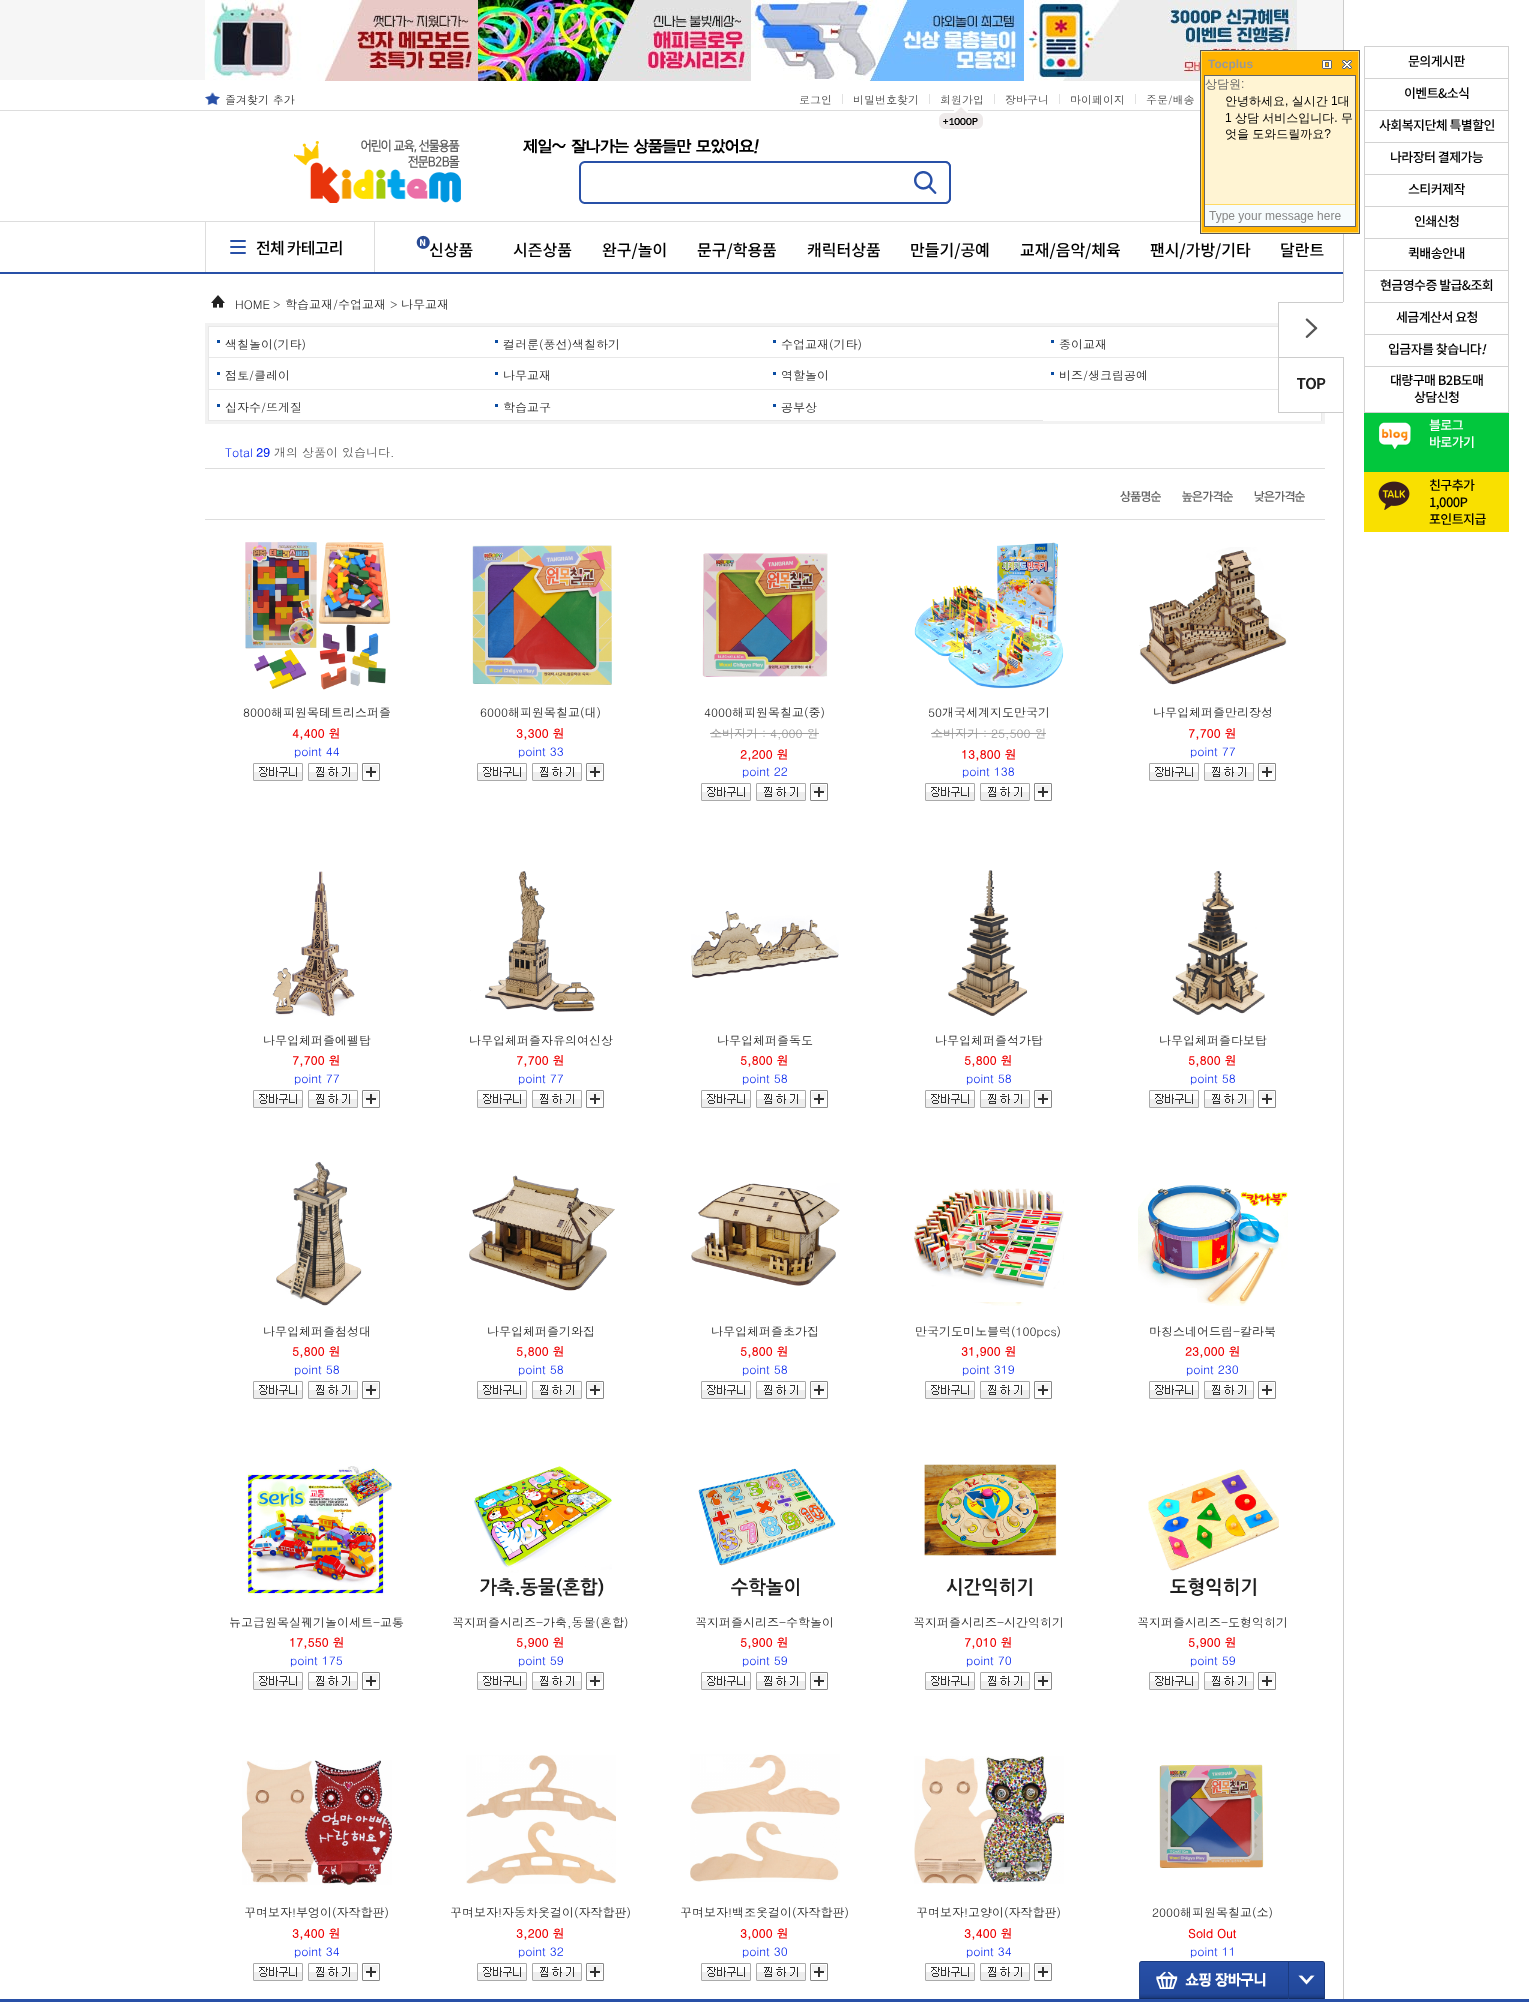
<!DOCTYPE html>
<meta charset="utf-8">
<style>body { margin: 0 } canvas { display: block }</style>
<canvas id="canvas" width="1529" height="2002"></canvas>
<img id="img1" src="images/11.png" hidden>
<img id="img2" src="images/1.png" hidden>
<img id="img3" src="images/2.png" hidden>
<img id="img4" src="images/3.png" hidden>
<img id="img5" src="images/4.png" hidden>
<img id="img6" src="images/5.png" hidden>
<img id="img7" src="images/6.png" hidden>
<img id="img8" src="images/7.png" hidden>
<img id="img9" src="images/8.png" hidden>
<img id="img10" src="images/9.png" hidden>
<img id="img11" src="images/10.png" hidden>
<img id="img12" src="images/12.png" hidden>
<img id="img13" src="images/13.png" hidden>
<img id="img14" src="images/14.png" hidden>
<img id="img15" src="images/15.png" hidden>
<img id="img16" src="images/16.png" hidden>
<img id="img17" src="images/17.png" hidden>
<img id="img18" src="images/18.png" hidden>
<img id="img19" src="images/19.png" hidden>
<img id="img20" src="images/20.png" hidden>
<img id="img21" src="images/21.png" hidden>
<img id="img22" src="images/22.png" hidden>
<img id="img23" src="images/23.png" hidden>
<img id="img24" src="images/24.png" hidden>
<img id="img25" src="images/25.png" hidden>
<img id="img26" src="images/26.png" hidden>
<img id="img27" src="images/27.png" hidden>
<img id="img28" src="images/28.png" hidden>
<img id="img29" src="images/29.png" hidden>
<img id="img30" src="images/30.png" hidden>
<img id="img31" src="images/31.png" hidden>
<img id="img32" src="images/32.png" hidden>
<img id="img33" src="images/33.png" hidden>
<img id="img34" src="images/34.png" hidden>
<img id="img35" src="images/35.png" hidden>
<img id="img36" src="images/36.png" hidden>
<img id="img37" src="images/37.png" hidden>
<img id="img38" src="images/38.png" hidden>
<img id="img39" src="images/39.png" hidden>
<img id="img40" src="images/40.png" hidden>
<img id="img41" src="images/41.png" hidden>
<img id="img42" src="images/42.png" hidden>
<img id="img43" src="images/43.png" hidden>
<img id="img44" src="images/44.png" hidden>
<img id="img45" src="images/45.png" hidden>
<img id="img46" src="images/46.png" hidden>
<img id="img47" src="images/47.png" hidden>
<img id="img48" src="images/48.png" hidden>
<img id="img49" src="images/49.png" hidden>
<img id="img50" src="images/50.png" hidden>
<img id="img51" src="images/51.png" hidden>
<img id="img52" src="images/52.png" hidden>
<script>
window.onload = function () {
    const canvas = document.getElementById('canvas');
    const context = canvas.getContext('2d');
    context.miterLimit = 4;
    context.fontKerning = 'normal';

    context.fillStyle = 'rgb(255, 255, 255)';
    context.fillRect(0, 0, 1529, 2002);
    context.fillStyle = 'rgb(204, 204, 204)';
    context.fillRect(1343, 0, 1, 2002);
    context.fillStyle = 'rgb(246, 246, 246)';
    context.fillRect(0, 0, 1343, 80);
    context.drawImage(document.getElementById('img1'), 1024, 0, 273, 81);
    context.strokeStyle = 'rgb(85, 85, 85)';
    context.strokeRect(1200.5, 50.5, 159, 183);
    context.fillStyle = 'rgb(255, 179, 0)';
    context.beginPath();
    context.rect(1201.5, 51.5, 157, 181);
    context.fill();
    context.strokeStyle = 'rgb(255, 218, 99)';
    context.stroke();
    context.drawImage(document.getElementById('img2'), 1322, 60, 10, 9);
    context.drawImage(document.getElementById('img3'), 1342, 60, 10, 9);
    context.strokeStyle = 'rgb(102, 102, 102)';
    context.strokeRect(1204.5, 75.5, 151, 151);
    context.drawImage(document.getElementById('img4'), 1205, 76, 150, 150);
    context.strokeStyle = 'rgb(242, 242, 242)';
    context.lineWidth = 3;
    context.strokeRect(206.5, 324.5, 1117, 98);
    context.fillStyle = 'rgb(255, 255, 255)';
    context.fillRect(1279, 323, 46, 34);
    context.drawImage(document.getElementById('img5'), 1305, 318, 13, 20);
    context.fillStyle = 'rgb(204, 204, 204)';
    context.fillRect(1278, 302, 66, 1);
    context.fillStyle = 'rgb(255, 255, 255)';
    context.fillRect(1343, 302, 1, 56);
    context.fillStyle = 'rgb(204, 204, 204)';
    context.fillRect(1278, 357, 66, 1);
    context.fillRect(1278, 302, 1, 56);
    context.fillStyle = 'rgb(255, 255, 255)';
    context.fillRect(1322, 358, 3, 54);
    context.drawImage(document.getElementById('img6'), 1297, 377, 29, 13);
    context.fillStyle = 'rgb(204, 204, 204)';
    context.fillRect(1278, 412, 66, 1);
    context.fillRect(1278, 358, 1, 55);
    context.strokeStyle = 'rgb(210, 210, 210)';
    context.lineWidth = 1;
    context.strokeRect(1364.5, 46.5, 144, 32);
    context.strokeRect(1364.5, 78.5, 144, 32);
    context.strokeRect(1364.5, 110.5, 144, 32);
    context.strokeRect(1364.5, 142.5, 144, 32);
    context.strokeRect(1364.5, 174.5, 144, 32);
    context.strokeRect(1364.5, 206.5, 144, 32);
    context.strokeRect(1364.5, 238.5, 144, 32);
    context.strokeRect(1364.5, 270.5, 144, 32);
    context.strokeRect(1364.5, 302.5, 144, 32);
    context.strokeRect(1364.5, 334.5, 144, 32);
    context.strokeRect(1364.5, 366.5, 144, 46);
    context.fillStyle = 'rgb(2, 199, 61)';
    context.fillRect(1364, 413, 145, 59);
    context.drawImage(document.getElementById('img7'), 1379, 422, 32, 27);
    context.fillStyle = 'rgb(249, 224, 0)';
    context.fillRect(1364, 472, 145, 60);
    context.drawImage(document.getElementById('img8'), 1378, 481, 32, 29);
    context.drawImage(document.getElementById('img9'), 205, 0, 273, 81);
    context.drawImage(document.getElementById('img10'), 478, 0, 273, 81);
    context.drawImage(document.getElementById('img11'), 751, 0, 273, 81);
    context.fillStyle = 'rgb(221, 221, 221)';
    context.fillRect(0, 110, 1200, 1);
    context.drawImage(document.getElementById('img12'), 205, 92, 15, 13);
    context.fillStyle = 'rgb(225, 225, 225)';
    context.fillRect(842, 94, 1, 10);
    context.fillRect(929, 94, 1, 10);
    context.drawImage(document.getElementById('img13'), 939, 107, 44, 22);
    context.fillRect(994, 94, 1, 10);
    context.fillRect(1059, 94, 1, 10);
    context.fillRect(1135, 94, 1, 10);
    context.drawImage(document.getElementById('img14'), 523, 139, 236, 15);
    context.drawImage(document.getElementById('img15'), 294, 139, 167, 64);
    context.drawImage(document.getElementById('img16'), 579, 161, 372, 43);
    context.drawImage(document.getElementById('img17'), 914, 161, 37, 43);
    context.fillStyle = 'rgb(221, 221, 221)';
    context.fillRect(0, 221, 1200, 1);
    context.fillStyle = 'rgb(40, 80, 167)';
    context.fillRect(0, 272, 1343, 2);
    context.drawImage(document.getElementById('img18'), 230, 240, 16, 14);
    context.fillStyle = 'rgb(221, 221, 221)';
    context.fillRect(374, 222, 1, 50);
    context.fillRect(205, 222, 1, 50);
    context.drawImage(document.getElementById('img19'), 416, 235, 14, 14);
    context.drawImage(document.getElementById('img20'), 211, 295, 14, 13);
    context.fillStyle = 'rgb(232, 232, 232)';
    context.fillRect(208, 326, 1070, 1);
    context.fillRect(1321, 413, 1, 8);
    context.fillRect(208, 326, 1, 95);
    context.fillRect(209, 357, 1069, 1);
    context.fillStyle = 'rgb(11, 77, 162)';
    context.fillRect(217, 340, 3, 3);
    context.fillRect(495, 340, 3, 3);
    context.fillRect(773, 340, 3, 3);
    context.fillRect(1051, 340, 3, 3);
    context.fillStyle = 'rgb(232, 232, 232)';
    context.fillRect(209, 389, 1069, 1);
    context.fillStyle = 'rgb(11, 77, 162)';
    context.fillRect(217, 372, 3, 3);
    context.fillRect(495, 372, 3, 3);
    context.fillRect(773, 372, 3, 3);
    context.fillRect(1051, 372, 3, 3);
    context.fillStyle = 'rgb(232, 232, 232)';
    context.fillRect(209, 420, 834, 1);
    context.fillStyle = 'rgb(11, 77, 162)';
    context.fillRect(217, 404, 3, 3);
    context.fillRect(495, 404, 3, 3);
    context.fillRect(773, 404, 3, 3);
    context.fillStyle = 'rgb(221, 221, 221)';
    context.fillRect(205, 519, 1120, 1);
    context.fillRect(205, 468, 1120, 1);
    context.drawImage(document.getElementById('img21'), 1120, 491, 41, 11);
    context.drawImage(document.getElementById('img22'), 1182, 491, 51, 11);
    context.drawImage(document.getElementById('img23'), 1254, 491, 51, 11);
    context.drawImage(document.getElementById('img24'), 245, 542, 146, 148);
    context.drawImage(document.getElementById('img25'), 253, 763, 50, 18);
    context.drawImage(document.getElementById('img26'), 308, 763, 50, 18);
    context.drawImage(document.getElementById('img27'), 362, 763, 18, 18);
    context.drawImage(document.getElementById('img28'), 472, 545, 140, 140);
    context.drawImage(document.getElementById('img25'), 477, 763, 50, 18);
    context.drawImage(document.getElementById('img26'), 532, 763, 50, 18);
    context.drawImage(document.getElementById('img27'), 586, 763, 18, 18);
    context.drawImage(document.getElementById('img29'), 702, 553, 126, 124);
    context.fillStyle = 'rgb(153, 153, 153)';
    context.fillRect(710, 733, 109, 1);
    context.drawImage(document.getElementById('img25'), 701, 783, 50, 18);
    context.drawImage(document.getElementById('img26'), 756, 783, 50, 18);
    context.drawImage(document.getElementById('img27'), 810, 783, 18, 18);
    context.drawImage(document.getElementById('img30'), 914, 542, 150, 147);
    context.fillRect(931, 733, 115, 1);
    context.drawImage(document.getElementById('img25'), 925, 783, 50, 18);
    context.drawImage(document.getElementById('img26'), 980, 783, 50, 18);
    context.drawImage(document.getElementById('img27'), 1034, 783, 18, 18);
    context.drawImage(document.getElementById('img31'), 1139, 547, 148, 138);
    context.drawImage(document.getElementById('img25'), 1149, 763, 50, 18);
    context.drawImage(document.getElementById('img26'), 1204, 763, 50, 18);
    context.drawImage(document.getElementById('img27'), 1258, 763, 18, 18);
    context.drawImage(document.getElementById('img32'), 272, 871, 83, 146);
    context.drawImage(document.getElementById('img25'), 253, 1090, 50, 18);
    context.drawImage(document.getElementById('img26'), 308, 1090, 50, 18);
    context.drawImage(document.getElementById('img27'), 362, 1090, 18, 18);
    context.drawImage(document.getElementById('img33'), 470, 871, 125, 141);
    context.drawImage(document.getElementById('img25'), 477, 1090, 50, 18);
    context.drawImage(document.getElementById('img26'), 532, 1090, 50, 18);
    context.drawImage(document.getElementById('img27'), 586, 1090, 18, 18);
    context.drawImage(document.getElementById('img34'), 691, 911, 148, 67);
    context.drawImage(document.getElementById('img25'), 701, 1090, 50, 18);
    context.drawImage(document.getElementById('img26'), 756, 1090, 50, 18);
    context.drawImage(document.getElementById('img27'), 810, 1090, 18, 18);
    context.drawImage(document.getElementById('img35'), 948, 870, 80, 146);
    context.drawImage(document.getElementById('img25'), 925, 1090, 50, 18);
    context.drawImage(document.getElementById('img26'), 980, 1090, 50, 18);
    context.drawImage(document.getElementById('img27'), 1034, 1090, 18, 18);
    context.drawImage(document.getElementById('img36'), 1172, 870, 93, 145);
    context.drawImage(document.getElementById('img25'), 1149, 1090, 50, 18);
    context.drawImage(document.getElementById('img26'), 1204, 1090, 50, 18);
    context.drawImage(document.getElementById('img27'), 1258, 1090, 18, 18);
    context.drawImage(document.getElementById('img37'), 276, 1161, 86, 145);
    context.drawImage(document.getElementById('img25'), 253, 1381, 50, 18);
    context.drawImage(document.getElementById('img26'), 308, 1381, 50, 18);
    context.drawImage(document.getElementById('img27'), 362, 1381, 18, 18);
    context.drawImage(document.getElementById('img38'), 469, 1175, 146, 116);
    context.drawImage(document.getElementById('img25'), 477, 1381, 50, 18);
    context.drawImage(document.getElementById('img26'), 532, 1381, 50, 18);
    context.drawImage(document.getElementById('img27'), 586, 1381, 18, 18);
    context.drawImage(document.getElementById('img39'), 691, 1183, 149, 103);
    context.drawImage(document.getElementById('img25'), 701, 1381, 50, 18);
    context.drawImage(document.getElementById('img26'), 756, 1381, 50, 18);
    context.drawImage(document.getElementById('img27'), 810, 1381, 18, 18);
    context.drawImage(document.getElementById('img40'), 914, 1188, 150, 118);
    context.drawImage(document.getElementById('img25'), 925, 1381, 50, 18);
    context.drawImage(document.getElementById('img26'), 980, 1381, 50, 18);
    context.drawImage(document.getElementById('img27'), 1034, 1381, 18, 18);
    context.drawImage(document.getElementById('img41'), 1138, 1185, 150, 121);
    context.drawImage(document.getElementById('img25'), 1149, 1381, 50, 18);
    context.drawImage(document.getElementById('img26'), 1204, 1381, 50, 18);
    context.drawImage(document.getElementById('img27'), 1258, 1381, 18, 18);
    context.drawImage(document.getElementById('img42'), 246, 1466, 146, 130);
    context.drawImage(document.getElementById('img25'), 253, 1672, 50, 18);
    context.drawImage(document.getElementById('img26'), 308, 1672, 50, 18);
    context.drawImage(document.getElementById('img27'), 362, 1672, 18, 18);
    context.drawImage(document.getElementById('img43'), 473, 1466, 139, 131);
    context.drawImage(document.getElementById('img25'), 477, 1672, 50, 18);
    context.drawImage(document.getElementById('img26'), 532, 1672, 50, 18);
    context.drawImage(document.getElementById('img27'), 586, 1672, 18, 18);
    context.drawImage(document.getElementById('img44'), 698, 1468, 138, 128);
    context.drawImage(document.getElementById('img25'), 701, 1672, 50, 18);
    context.drawImage(document.getElementById('img26'), 756, 1672, 50, 18);
    context.drawImage(document.getElementById('img27'), 810, 1672, 18, 18);
    context.drawImage(document.getElementById('img45'), 924, 1464, 133, 132);
    context.drawImage(document.getElementById('img25'), 925, 1672, 50, 18);
    context.drawImage(document.getElementById('img26'), 980, 1672, 50, 18);
    context.drawImage(document.getElementById('img27'), 1034, 1672, 18, 18);
    context.drawImage(document.getElementById('img46'), 1148, 1469, 131, 127);
    context.drawImage(document.getElementById('img25'), 1149, 1672, 50, 18);
    context.drawImage(document.getElementById('img26'), 1204, 1672, 50, 18);
    context.drawImage(document.getElementById('img27'), 1258, 1672, 18, 18);
    context.drawImage(document.getElementById('img47'), 242, 1760, 150, 125);
    context.drawImage(document.getElementById('img25'), 253, 1963, 50, 18);
    context.drawImage(document.getElementById('img26'), 308, 1963, 50, 18);
    context.drawImage(document.getElementById('img27'), 362, 1963, 18, 18);
    context.drawImage(document.getElementById('img48'), 466, 1755, 150, 129);
    context.drawImage(document.getElementById('img25'), 477, 1963, 50, 18);
    context.drawImage(document.getElementById('img26'), 532, 1963, 50, 18);
    context.drawImage(document.getElementById('img27'), 586, 1963, 18, 18);
    context.drawImage(document.getElementById('img49'), 690, 1754, 150, 128);
    context.drawImage(document.getElementById('img25'), 701, 1963, 50, 18);
    context.drawImage(document.getElementById('img26'), 756, 1963, 50, 18);
    context.drawImage(document.getElementById('img27'), 810, 1963, 18, 18);
    context.drawImage(document.getElementById('img50'), 914, 1756, 150, 128);
    context.drawImage(document.getElementById('img25'), 925, 1963, 50, 18);
    context.drawImage(document.getElementById('img26'), 980, 1963, 50, 18);
    context.drawImage(document.getElementById('img27'), 1034, 1963, 18, 18);
    context.drawImage(document.getElementById('img51'), 1159, 1764, 105, 104);
    context.fillStyle = 'rgb(40, 80, 167)';
    context.fillRect(0, 1999, 1529, 3);
    context.drawImage(document.getElementById('img52'), 1139, 1961, 186, 38);
    context.font = 'bold 12px Liberation Sans';
    context.fillStyle = 'rgb(153, 153, 153)';
    context.fillText('Tocplus', 1208, 68);
    context.letterSpacing = '-0.6px';
    context.font = '500 13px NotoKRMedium';
    context.fillStyle = 'rgb(0, 0, 0)';
    context.fillText('문의게시판', 1408, 66);
    context.fillText('이벤트&소식', 1404, 98);
    context.fillText('사회복지단체 특별할인', 1379, 130);
    context.fillText('나라장터 결제가능', 1390, 162);
    context.fillText('스티커제작', 1408, 194);
    context.fillText('인쇄신청', 1414, 226);
    context.fillText('퀵배송안내', 1408, 258);
    context.fillText('현금영수증 발급&조회', 1380, 290);
    context.fillText('세금계산서 요청', 1396, 322);
    context.fillText('입금자를 찾습니다', 1388, 354);
    context.font = 'italic 500 13px NotoKRMedium';
    context.fillText('!', 1481, 354);
    context.font = '500 13px NotoKRMedium';
    context.fillText('대량구매 B2B도매', 1390, 385);
    context.fillText('상담신청', 1414, 402);
    context.fillStyle = 'rgb(255, 255, 255)';
    context.fillText('블로그', 1429, 430);
    context.fillText('바로가기', 1429, 447);
    context.fillStyle = 'rgb(0, 0, 0)';
    context.fillText('친구추가', 1429, 490);
    context.fillText('1,000P', 1429, 507);
    context.fillText('포인트지급', 1429, 524);
    context.letterSpacing = '0px';
    context.font = '11px Dotum';
    context.fillStyle = 'rgb(28, 28, 28)';
    context.fillText('즐겨찾기 추가', 225, 104);
    context.fillStyle = 'rgb(68, 68, 68)';
    context.fillText('로그인', 799, 104);
    context.fillText('비밀번호찾기', 853, 104);
    context.fillText('회원가입', 940, 104);
    context.fillText('장바구니', 1005, 104);
    context.fillText('마이페이지', 1070, 104);
    context.fillText('주문/배송', 1146, 104);
    context.letterSpacing = '-0.75px';
    context.font = '500 16px Noto Sans KR';
    context.fillStyle = 'rgb(0, 0, 0)';
    context.fillText('전체 카테고리', 256, 254);
    context.letterSpacing = '0px';
    context.fillText('신상품', 429, 256);
    context.fillText('시즌상품', 513, 256);
    context.fillText('완구/놀이', 602, 256);
    context.fillText('문구/학용품', 697, 256);
    context.fillText('캐릭터상품', 807, 256);
    context.fillText('만들기/공예', 910, 256);
    context.fillText('교재/음악/체육', 1020, 256);
    context.fillText('팬시/가방/기타', 1150, 256);
    context.fillText('달란트', 1280, 256);
    context.font = '12px Dotum';
    context.fillStyle = 'rgb(28, 28, 28)';
    context.fillText('HOME', 235, 309);
    context.fillStyle = 'rgb(85, 85, 85)';
    context.fillText('>', 273, 309);
    context.fillStyle = 'rgb(28, 28, 28)';
    context.fillText('학습교재/수업교재', 285, 309);
    context.fillStyle = 'rgb(85, 85, 85)';
    context.fillText('>', 390, 309);
    context.fillStyle = 'rgb(28, 28, 28)';
    context.fillText('나무교재', 401, 309);
    context.fillText('색칠놀이(기타)', 225, 349);
    context.fillText('컬러룬(풍선)색칠하기', 503, 349);
    context.fillText('수업교재(기타)', 781, 349);
    context.fillText('종이교재', 1059, 349);
    context.fillText('점토/클레이', 225, 380);
    context.fillText('나무교재', 503, 380);
    context.fillText('역할놀이', 781, 380);
    context.fillText('비즈/생크림공예', 1059, 380);
    context.fillText('십자수/뜨게질', 225, 412);
    context.fillText('학습교구', 503, 412);
    context.fillText('공부상', 781, 412);
    context.fillStyle = 'rgb(0, 34, 238)';
    context.fillText('Total', 225, 457);
    context.font = 'bold 12px Dotum';
    context.fillText('29', 256, 457);
    context.font = '12px Dotum';
    context.fillStyle = 'rgb(85, 85, 85)';
    context.fillText('개의 상품이 있습니다.', 274, 457);
    context.fillStyle = 'rgb(28, 28, 28)';
    context.fillText('8000해피원목테트리스퍼즐', 243, 717);
    context.font = 'bold 12px Dotum';
    context.fillStyle = 'rgb(238, 0, 0)';
    context.fillText('4,400 원', 292, 738);
    context.font = '12px Dotum';
    context.fillStyle = 'rgb(0, 34, 238)';
    context.fillText('point 44', 294, 756);
    context.fillStyle = 'rgb(28, 28, 28)';
    context.fillText('6000해피원목칠교(대)', 480, 717);
    context.font = 'bold 12px Dotum';
    context.fillStyle = 'rgb(238, 0, 0)';
    context.fillText('3,300 원', 516, 738);
    context.font = '12px Dotum';
    context.fillStyle = 'rgb(0, 34, 238)';
    context.fillText('point 33', 518, 756);
    context.fillStyle = 'rgb(28, 28, 28)';
    context.fillText('4000해피원목칠교(중)', 704, 717);
    context.fillStyle = 'rgb(153, 153, 153)';
    context.fillText('소비자가 : 4,000 원', 710, 738);
    context.font = 'bold 12px Dotum';
    context.fillStyle = 'rgb(238, 0, 0)';
    context.fillText('2,200 원', 740, 759);
    context.font = '12px Dotum';
    context.fillStyle = 'rgb(0, 34, 238)';
    context.fillText('point 22', 742, 776);
    context.fillStyle = 'rgb(28, 28, 28)';
    context.fillText('50개국세계지도만국기', 928, 717);
    context.fillStyle = 'rgb(153, 153, 153)';
    context.fillText('소비자가 : 25,500 원', 931, 738);
    context.font = 'bold 12px Dotum';
    context.fillStyle = 'rgb(238, 0, 0)';
    context.fillText('13,800 원', 961, 759);
    context.font = '12px Dotum';
    context.fillStyle = 'rgb(0, 34, 238)';
    context.fillText('point 138', 962, 776);
    context.fillStyle = 'rgb(28, 28, 28)';
    context.fillText('나무입체퍼즐만리장성', 1153, 717);
    context.font = 'bold 12px Dotum';
    context.fillStyle = 'rgb(238, 0, 0)';
    context.fillText('7,700 원', 1188, 738);
    context.font = '12px Dotum';
    context.fillStyle = 'rgb(0, 34, 238)';
    context.fillText('point 77', 1190, 756);
    context.fillStyle = 'rgb(28, 28, 28)';
    context.fillText('나무입체퍼즐에펠탑', 263, 1045);
    context.font = 'bold 12px Dotum';
    context.fillStyle = 'rgb(238, 0, 0)';
    context.fillText('7,700 원', 292, 1065);
    context.font = '12px Dotum';
    context.fillStyle = 'rgb(0, 34, 238)';
    context.fillText('point 77', 294, 1083);
    context.fillStyle = 'rgb(28, 28, 28)';
    context.fillText('나무입체퍼즐자유의여신상', 469, 1045);
    context.font = 'bold 12px Dotum';
    context.fillStyle = 'rgb(238, 0, 0)';
    context.fillText('7,700 원', 516, 1065);
    context.font = '12px Dotum';
    context.fillStyle = 'rgb(0, 34, 238)';
    context.fillText('point 77', 518, 1083);
    context.fillStyle = 'rgb(28, 28, 28)';
    context.fillText('나무입체퍼즐독도', 717, 1045);
    context.font = 'bold 12px Dotum';
    context.fillStyle = 'rgb(238, 0, 0)';
    context.fillText('5,800 원', 740, 1065);
    context.font = '12px Dotum';
    context.fillStyle = 'rgb(0, 34, 238)';
    context.fillText('point 58', 742, 1083);
    context.fillStyle = 'rgb(28, 28, 28)';
    context.fillText('나무입체퍼즐석가탑', 935, 1045);
    context.font = 'bold 12px Dotum';
    context.fillStyle = 'rgb(238, 0, 0)';
    context.fillText('5,800 원', 964, 1065);
    context.font = '12px Dotum';
    context.fillStyle = 'rgb(0, 34, 238)';
    context.fillText('point 58', 966, 1083);
    context.fillStyle = 'rgb(28, 28, 28)';
    context.fillText('나무입체퍼즐다보탑', 1159, 1045);
    context.font = 'bold 12px Dotum';
    context.fillStyle = 'rgb(238, 0, 0)';
    context.fillText('5,800 원', 1188, 1065);
    context.font = '12px Dotum';
    context.fillStyle = 'rgb(0, 34, 238)';
    context.fillText('point 58', 1190, 1083);
    context.fillStyle = 'rgb(28, 28, 28)';
    context.fillText('나무입체퍼즐첨성대', 263, 1336);
    context.font = 'bold 12px Dotum';
    context.fillStyle = 'rgb(238, 0, 0)';
    context.fillText('5,800 원', 292, 1356);
    context.font = '12px Dotum';
    context.fillStyle = 'rgb(0, 34, 238)';
    context.fillText('point 58', 294, 1374);
    context.fillStyle = 'rgb(28, 28, 28)';
    context.fillText('나무입체퍼즐기와집', 487, 1336);
    context.font = 'bold 12px Dotum';
    context.fillStyle = 'rgb(238, 0, 0)';
    context.fillText('5,800 원', 516, 1356);
    context.font = '12px Dotum';
    context.fillStyle = 'rgb(0, 34, 238)';
    context.fillText('point 58', 518, 1374);
    context.fillStyle = 'rgb(28, 28, 28)';
    context.fillText('나무입체퍼즐초가집', 711, 1336);
    context.font = 'bold 12px Dotum';
    context.fillStyle = 'rgb(238, 0, 0)';
    context.fillText('5,800 원', 740, 1356);
    context.font = '12px Dotum';
    context.fillStyle = 'rgb(0, 34, 238)';
    context.fillText('point 58', 742, 1374);
    context.fillStyle = 'rgb(28, 28, 28)';
    context.fillText('만국기도미노블럭(100pcs)', 915, 1336);
    context.font = 'bold 12px Dotum';
    context.fillStyle = 'rgb(238, 0, 0)';
    context.fillText('31,900 원', 961, 1356);
    context.font = '12px Dotum';
    context.fillStyle = 'rgb(0, 34, 238)';
    context.fillText('point 319', 962, 1374);
    context.fillStyle = 'rgb(28, 28, 28)';
    context.fillText('마칭스네어드림-칼라북', 1149, 1336);
    context.font = 'bold 12px Dotum';
    context.fillStyle = 'rgb(238, 0, 0)';
    context.fillText('23,000 원', 1185, 1356);
    context.font = '12px Dotum';
    context.fillStyle = 'rgb(0, 34, 238)';
    context.fillText('point 230', 1186, 1374);
    context.fillStyle = 'rgb(28, 28, 28)';
    context.fillText('뉴고급원목실꿰기놀이세트-교통', 229, 1627);
    context.font = 'bold 12px Dotum';
    context.fillStyle = 'rgb(238, 0, 0)';
    context.fillText('17,550 원', 289, 1647);
    context.font = '12px Dotum';
    context.fillStyle = 'rgb(0, 34, 238)';
    context.fillText('point 175', 290, 1665);
    context.fillStyle = 'rgb(28, 28, 28)';
    context.fillText('꼭지퍼즐시리즈-가축,동물(혼합)', 452, 1627);
    context.font = 'bold 12px Dotum';
    context.fillStyle = 'rgb(238, 0, 0)';
    context.fillText('5,900 원', 516, 1647);
    context.font = '12px Dotum';
    context.fillStyle = 'rgb(0, 34, 238)';
    context.fillText('point 59', 518, 1665);
    context.fillStyle = 'rgb(28, 28, 28)';
    context.fillText('꼭지퍼즐시리즈-수학놀이', 695, 1627);
    context.font = 'bold 12px Dotum';
    context.fillStyle = 'rgb(238, 0, 0)';
    context.fillText('5,900 원', 740, 1647);
    context.font = '12px Dotum';
    context.fillStyle = 'rgb(0, 34, 238)';
    context.fillText('point 59', 742, 1665);
    context.fillStyle = 'rgb(28, 28, 28)';
    context.fillText('꼭지퍼즐시리즈-시간익히기', 913, 1627);
    context.font = 'bold 12px Dotum';
    context.fillStyle = 'rgb(238, 0, 0)';
    context.fillText('7,010 원', 964, 1647);
    context.font = '12px Dotum';
    context.fillStyle = 'rgb(0, 34, 238)';
    context.fillText('point 70', 966, 1665);
    context.fillStyle = 'rgb(28, 28, 28)';
    context.fillText('꼭지퍼즐시리즈-도형익히기', 1137, 1627);
    context.font = 'bold 12px Dotum';
    context.fillStyle = 'rgb(238, 0, 0)';
    context.fillText('5,900 원', 1188, 1647);
    context.font = '12px Dotum';
    context.fillStyle = 'rgb(0, 34, 238)';
    context.fillText('point 59', 1190, 1665);
    context.fillStyle = 'rgb(28, 28, 28)';
    context.fillText('꾸며보자!부엉이(자작합판)', 244, 1917);
    context.font = 'bold 12px Dotum';
    context.fillStyle = 'rgb(238, 0, 0)';
    context.fillText('3,400 원', 292, 1938);
    context.font = '12px Dotum';
    context.fillStyle = 'rgb(0, 34, 238)';
    context.fillText('point 34', 294, 1956);
    context.fillStyle = 'rgb(28, 28, 28)';
    context.fillText('꾸며보자!자동차옷걸이(자작합판)', 450, 1917);
    context.font = 'bold 12px Dotum';
    context.fillStyle = 'rgb(238, 0, 0)';
    context.fillText('3,200 원', 516, 1938);
    context.font = '12px Dotum';
    context.fillStyle = 'rgb(0, 34, 238)';
    context.fillText('point 32', 518, 1956);
    context.fillStyle = 'rgb(28, 28, 28)';
    context.fillText('꾸며보자!백조옷걸이(자작합판)', 680, 1917);
    context.font = 'bold 12px Dotum';
    context.fillStyle = 'rgb(238, 0, 0)';
    context.fillText('3,000 원', 740, 1938);
    context.font = '12px Dotum';
    context.fillStyle = 'rgb(0, 34, 238)';
    context.fillText('point 30', 742, 1956);
    context.fillStyle = 'rgb(28, 28, 28)';
    context.fillText('꾸며보자!고양이(자작합판)', 916, 1917);
    context.font = 'bold 12px Dotum';
    context.fillStyle = 'rgb(238, 0, 0)';
    context.fillText('3,400 원', 964, 1938);
    context.font = '12px Dotum';
    context.fillStyle = 'rgb(0, 34, 238)';
    context.fillText('point 34', 966, 1956);
    context.fillStyle = 'rgb(28, 28, 28)';
    context.fillText('2000해피원목칠교(소)', 1152, 1917);
    context.font = 'bold 12px Dotum';
    context.fillStyle = 'rgb(238, 0, 0)';
    context.fillText('Sold Out', 1188, 1938);
    context.font = '12px Dotum';
    context.fillStyle = 'rgb(0, 34, 238)';
    context.fillText('point 11', 1190, 1956);
};
</script>
